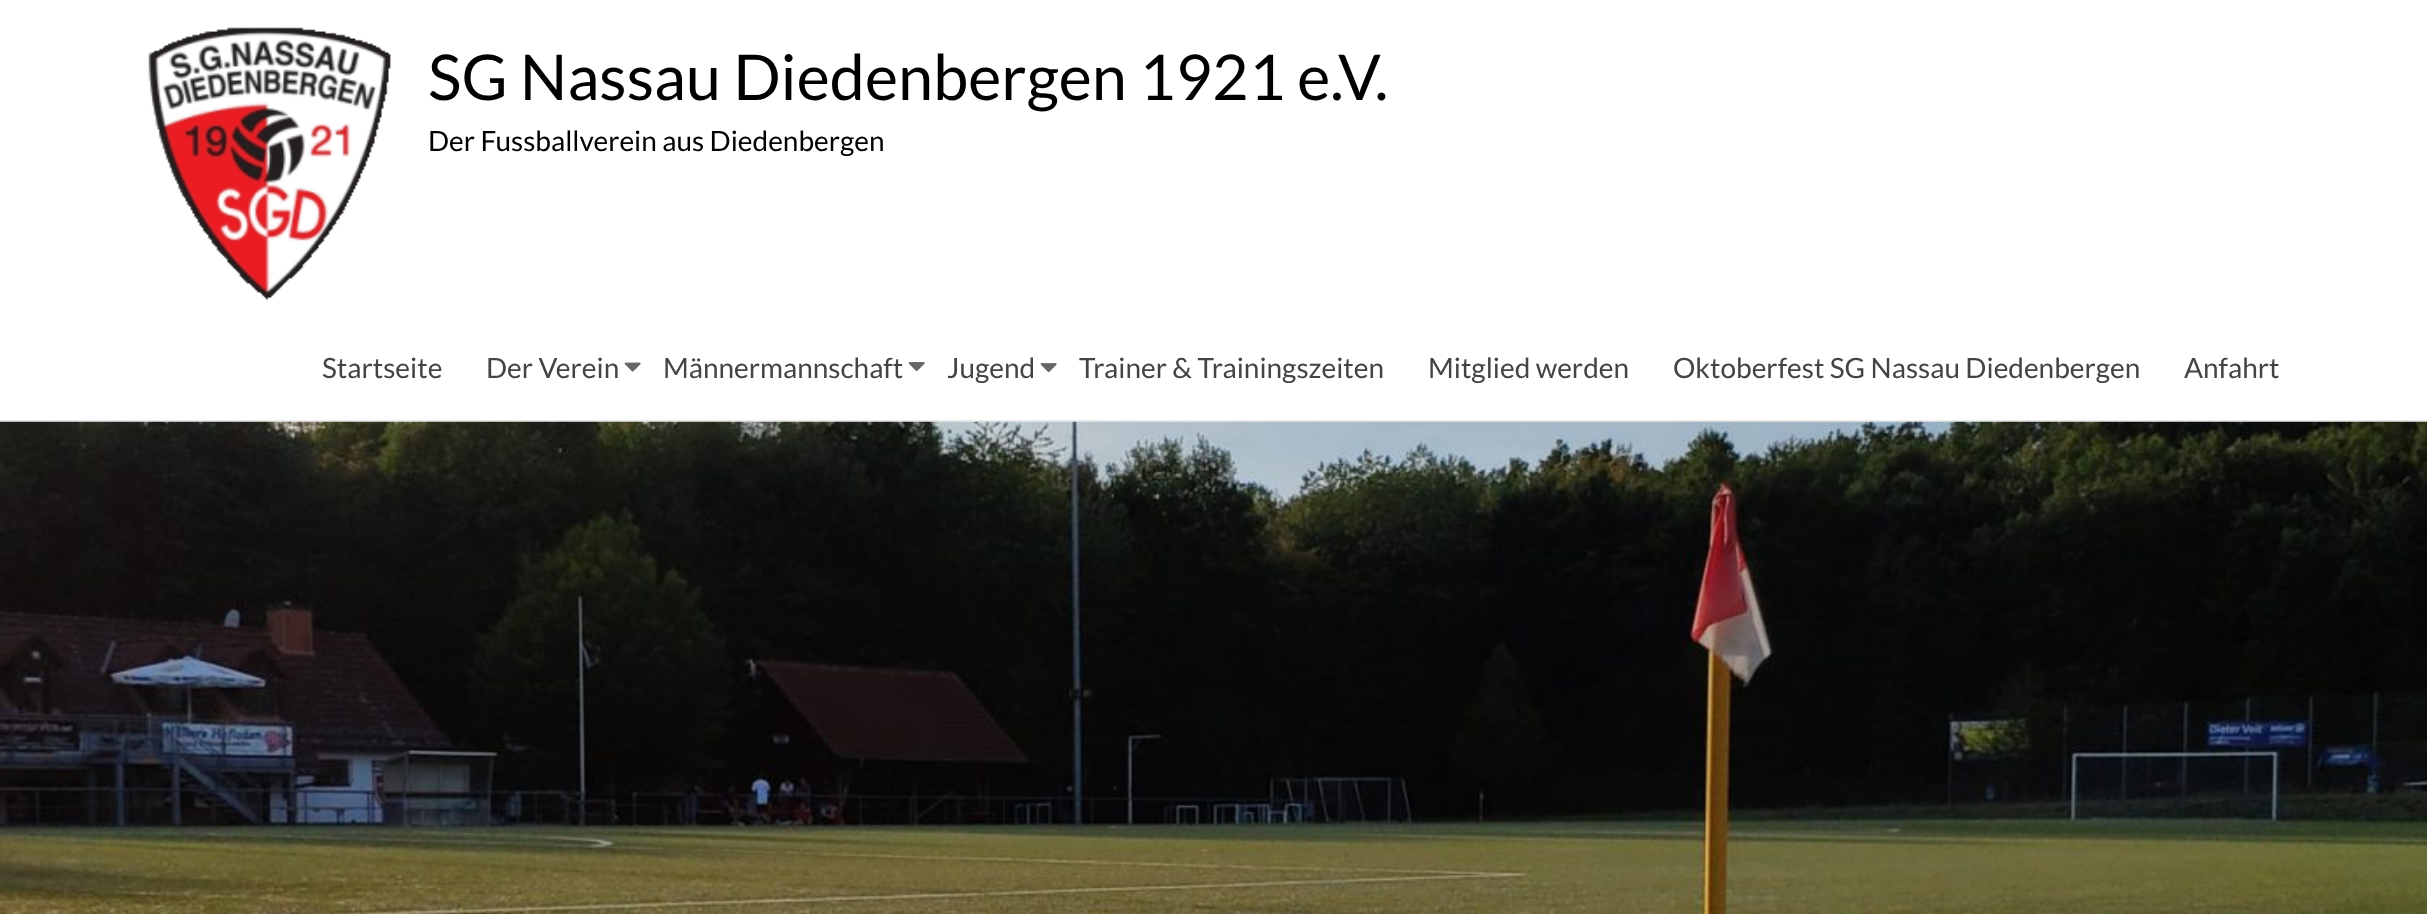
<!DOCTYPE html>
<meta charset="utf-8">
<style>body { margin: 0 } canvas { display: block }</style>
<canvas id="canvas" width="2427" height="914"></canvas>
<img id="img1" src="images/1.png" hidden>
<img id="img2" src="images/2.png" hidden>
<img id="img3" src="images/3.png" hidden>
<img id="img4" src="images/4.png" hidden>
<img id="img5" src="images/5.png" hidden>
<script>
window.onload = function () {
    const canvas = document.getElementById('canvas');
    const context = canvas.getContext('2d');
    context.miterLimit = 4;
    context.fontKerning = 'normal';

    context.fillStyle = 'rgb(255, 255, 255)';
    context.fillRect(0, 0, 2427, 914);
    context.fillStyle = 'rgb(234, 234, 234)';
    context.fillRect(0, 420, 2427, 2);
    context.drawImage(document.getElementById('img1'), 148, 27, 243, 273);
    context.drawImage(document.getElementById('img2'), 624, 362, 17, 10);
    context.drawImage(document.getElementById('img3'), 908, 362, 17, 10);
    context.drawImage(document.getElementById('img4'), 1040, 363, 17, 10);
    context.drawImage(document.getElementById('img5'), 0, 421, 2427, 493);
    context.font = '63px Lato';
    context.fillStyle = 'rgb(0, 0, 0)';
    context.fillText('SG Nassau Diedenbergen 1921 e.V.', 428, 100);
    context.font = '28px Lato';
    context.fillText('Der Fussballverein aus Diedenbergen', 428, 151);
    context.fillStyle = 'rgb(68, 68, 68)';
    context.fillText('Startseite', 322, 378);
    context.fillText('Der Verein', 486, 378);
    context.fillText('Männermannschaft', 663, 378);
    context.fillText('Jugend', 947, 378);
    context.fillText('Trainer & Trainingszeiten', 1079, 378);
    context.fillText('Mitglied werden', 1428, 378);
    context.fillText('Oktoberfest SG Nassau Diedenbergen', 1673, 378);
    context.fillText('Anfahrt', 2184, 378);
};
</script>
